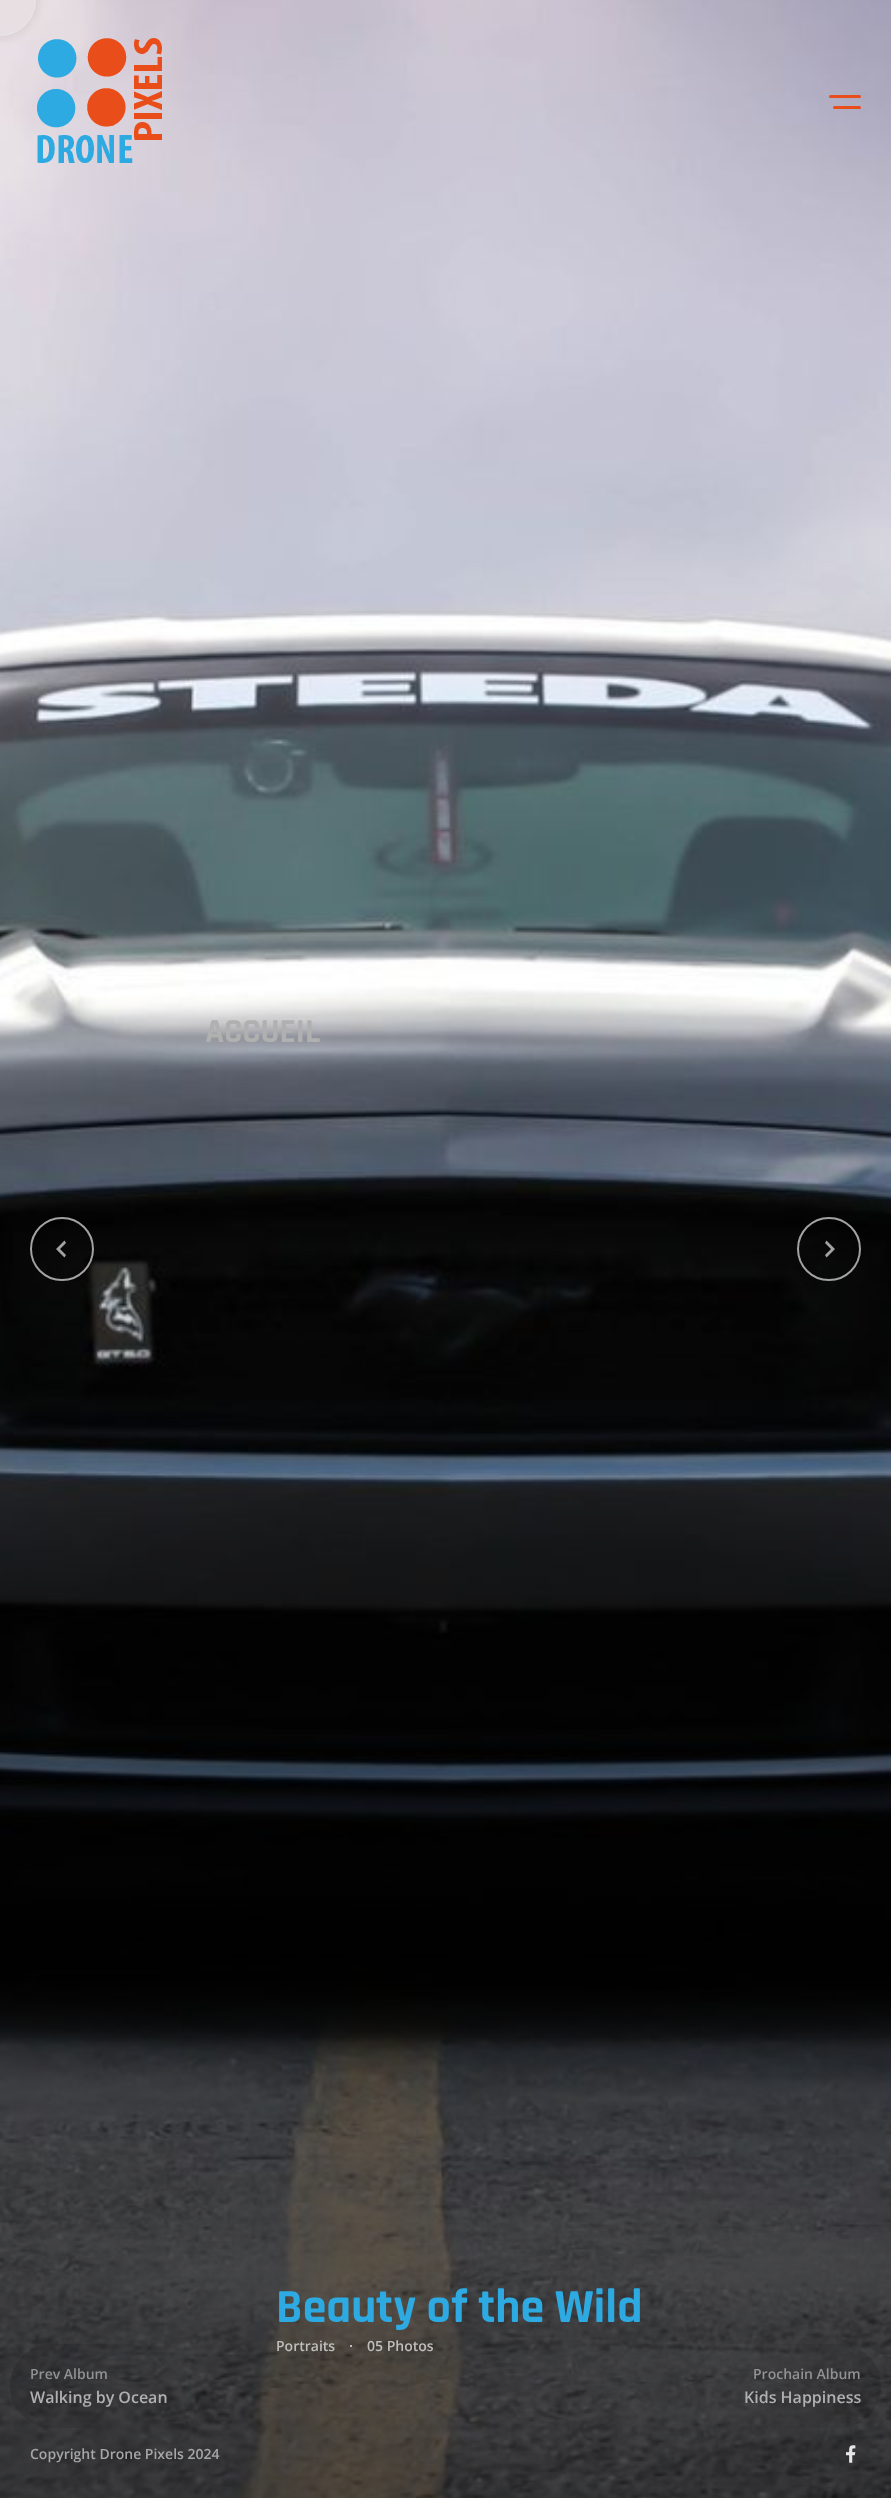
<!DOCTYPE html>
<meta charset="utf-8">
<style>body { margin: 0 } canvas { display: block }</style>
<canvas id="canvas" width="891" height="2498"></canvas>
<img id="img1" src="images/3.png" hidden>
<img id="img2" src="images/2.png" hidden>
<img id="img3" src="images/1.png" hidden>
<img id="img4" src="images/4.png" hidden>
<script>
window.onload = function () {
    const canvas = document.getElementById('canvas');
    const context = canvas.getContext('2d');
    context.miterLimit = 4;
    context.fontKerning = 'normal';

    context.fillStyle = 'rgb(255, 255, 255)';
    context.fillRect(0, 0, 891, 2498);
    context.drawImage(document.getElementById('img1'), 0, 0, 891, 2498);
    context.drawImage(document.getElementById('img2'), 37, 38, 125, 125);
    context.save();
    context.beginPath();
    context.moveTo(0, 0);
    context.lineTo(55, 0);
    context.lineTo(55, 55);
    context.lineTo(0, 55);
    context.closePath();
    context.moveTo(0, -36);
    context.bezierCurveTo(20, -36, 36, -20, 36, 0);
    context.bezierCurveTo(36, 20, 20, 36, 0, 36);
    context.bezierCurveTo(-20, 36, -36, 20, -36, 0);
    context.bezierCurveTo(-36, -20, -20, -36, 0, -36);
    context.closePath();
    context.clip('evenodd');
    context.fillStyle = 'rgba(14, 14, 16, 0.12)';
    context.filter = 'blur(6px)';
    context.beginPath();
    context.roundRect(-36, -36, 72, 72, 36);
    context.fill();
    context.filter = 'none';
    context.restore();
    context.beginPath();
    context.arc(0, 0, 35, 0, 2 * Math.PI);
    context.strokeStyle = 'rgba(230, 230, 230, 0.5)';
    context.lineWidth = 2;
    context.stroke();
    context.drawImage(document.getElementById('img3'), 57, 0, 2, 1);
    context.fillStyle = 'rgb(233, 78, 26)';
    context.beginPath();
    context.roundRect(829, 95, 32, 3, 1.5);
    context.fill();
    context.beginPath();
    context.roundRect(833, 106, 28, 3, 1.5);
    context.fill();
    context.fillStyle = 'rgb(163, 163, 163)';
    context.beginPath();
    context.moveTo(66, 1243);
    context.lineTo(60, 1249);
    context.lineTo(66, 1255);
    context.lineTo(64.5, 1257.5);
    context.lineTo(56, 1249);
    context.lineTo(64.5, 1240.5);
    context.closePath();
    context.fill();
    context.beginPath();
    context.arc(62, 1249, 31, 0, 2 * Math.PI);
    context.strokeStyle = 'rgba(230, 230, 230, 0.7)';
    context.stroke();
    context.beginPath();
    context.moveTo(825, 1255);
    context.lineTo(831, 1249);
    context.lineTo(825, 1243);
    context.lineTo(826.5, 1240.5);
    context.lineTo(835, 1249);
    context.lineTo(826.5, 1257.5);
    context.closePath();
    context.fill();
    context.beginPath();
    context.arc(829, 1249, 31, 0, 2 * Math.PI);
    context.stroke();
    context.fillStyle = 'rgba(230, 230, 230, 0.75)';
    context.fillRect(350, 2345, 2, 2);
    context.drawImage(document.getElementById('img4'), 846, 2445, 10, 18);
    context.font = 'bold 34px Rajdhani';
    context.fillStyle = 'rgb(176, 176, 177)';
    context.fillText('ACCUEIL', 205, 1042);
    context.font = 'bold 48px Rajdhani';
    context.fillStyle = 'rgb(45, 170, 225)';
    context.fillText('Beauty of the Wild', 276, 2322);
    context.font = '600 14px Open Sans';
    context.fillStyle = 'rgb(191, 190, 189)';
    context.fillText('Portraits', 276, 2351);
    context.fillText('05 Photos', 367, 2351);
    context.fillStyle = 'rgb(145, 146, 146)';
    context.fillText('Prev Album', 30, 2379);
    context.font = '600 16px Open Sans';
    context.fillStyle = 'rgb(176, 176, 177)';
    context.fillText('Walking by Ocean', 30, 2403);
    context.font = '600 14px Open Sans';
    context.fillStyle = 'rgb(145, 146, 146)';
    context.fillText('Prochain Album', 753, 2379);
    context.font = '600 16px Open Sans';
    context.fillStyle = 'rgb(176, 176, 177)';
    context.fillText('Kids Happiness', 744, 2403);
    context.font = '600 14px Open Sans';
    context.fillStyle = 'rgb(166, 166, 166)';
    context.fillText('Copyright Drone Pixels 2024', 30, 2459);
};
</script>
